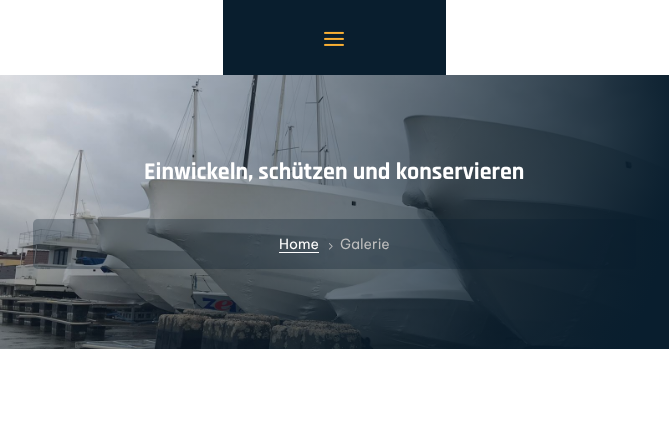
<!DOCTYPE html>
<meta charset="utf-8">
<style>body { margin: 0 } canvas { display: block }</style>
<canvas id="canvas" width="669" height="432"></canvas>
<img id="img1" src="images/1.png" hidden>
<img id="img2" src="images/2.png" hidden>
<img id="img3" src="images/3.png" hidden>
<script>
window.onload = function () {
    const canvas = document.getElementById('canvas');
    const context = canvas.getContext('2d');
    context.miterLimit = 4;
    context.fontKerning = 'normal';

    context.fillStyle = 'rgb(255, 255, 255)';
    context.fillRect(0, 0, 669, 432);
    context.fillStyle = 'rgb(9, 30, 46)';
    context.fillRect(223, 0, 223, 75);
    context.drawImage(document.getElementById('img1'), 324, 31, 20, 15);
    context.drawImage(document.getElementById('img2'), 0, 75, 669, 274);
    context.fillStyle = 'rgba(9, 30, 46, 0.3)';
    context.beginPath();
    context.roundRect(33, 219, 603, 50, 5);
    context.fill();
    context.fillStyle = 'rgb(255, 255, 255)';
    context.fillRect(279, 252, 40, 1);
    context.drawImage(document.getElementById('img3'), 329, 243, 4, 7);
    context.font = 'bold 24px Rajdhani';
    context.fillText('Einwickeln, schützen und konservieren', 144, 179);
    context.font = '14px Be Vietnam Pro';
    context.fillText('Home', 279, 249);
    context.fillStyle = 'rgb(189, 189, 189)';
    context.fillText('Galerie', 340, 249);
};
</script>
